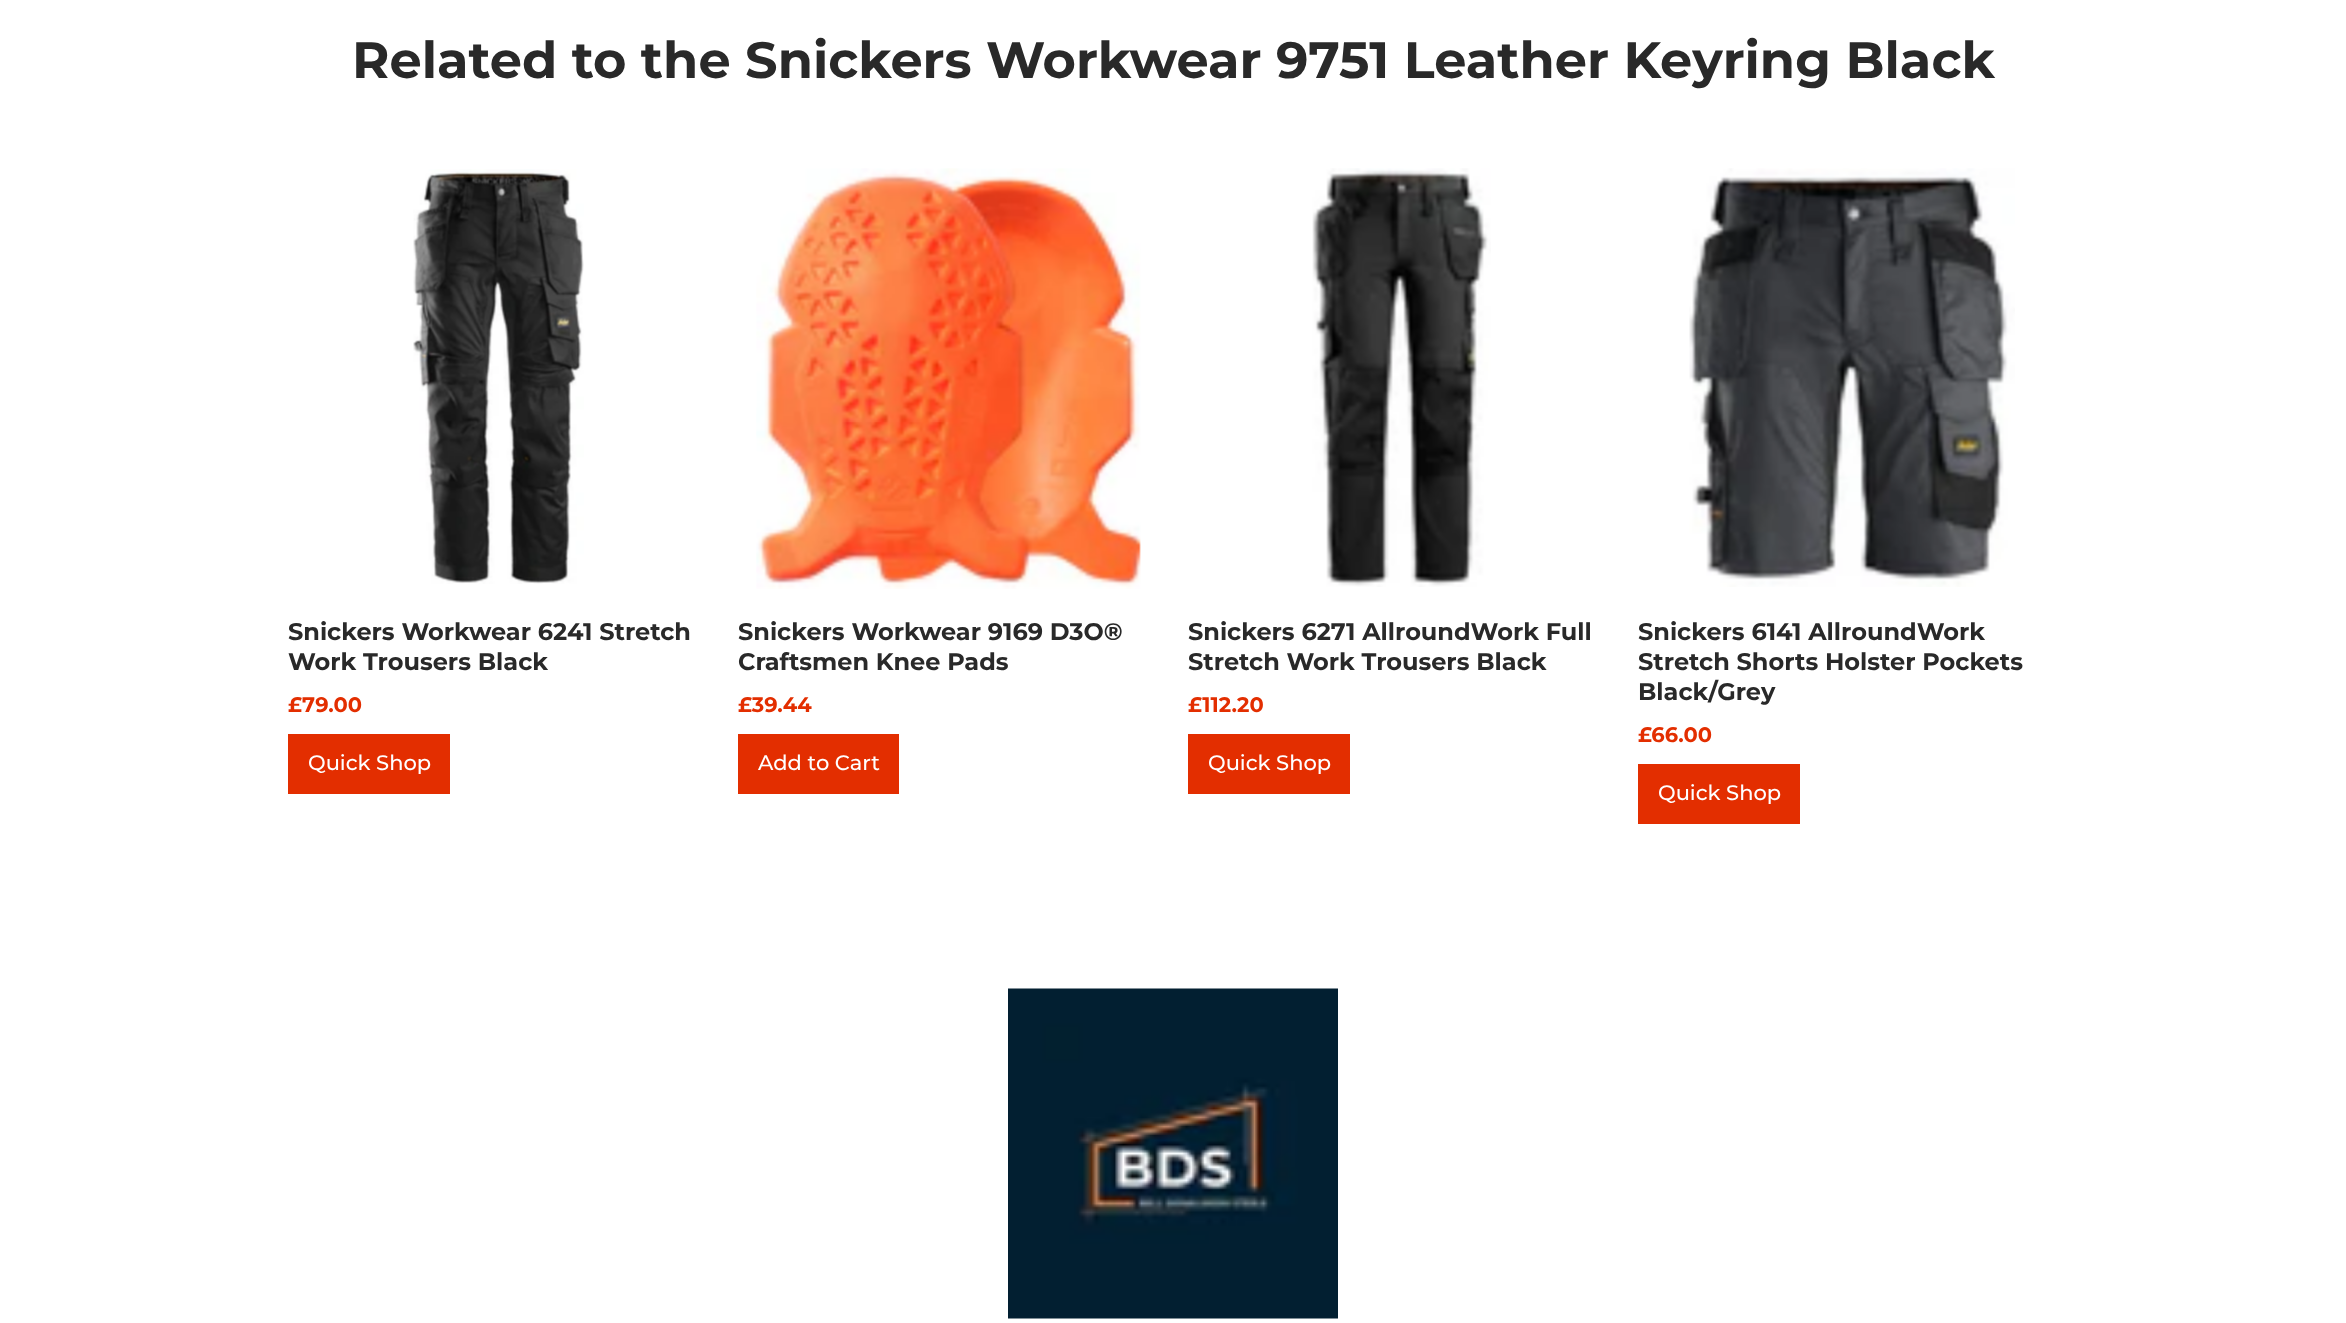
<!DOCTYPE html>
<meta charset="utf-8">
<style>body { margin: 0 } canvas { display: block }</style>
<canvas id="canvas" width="2346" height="1323"></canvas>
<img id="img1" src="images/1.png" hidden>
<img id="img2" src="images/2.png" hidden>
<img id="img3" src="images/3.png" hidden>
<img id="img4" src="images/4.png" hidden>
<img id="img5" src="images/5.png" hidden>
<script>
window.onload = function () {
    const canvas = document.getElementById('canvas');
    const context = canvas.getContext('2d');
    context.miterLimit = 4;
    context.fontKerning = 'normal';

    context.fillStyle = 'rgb(255, 255, 255)';
    context.fillRect(0, 0, 2346, 1323);
    context.drawImage(document.getElementById('img1'), 413, 169, 171, 415);
    context.fillStyle = 'rgb(227, 46, 0)';
    context.fillRect(288, 734, 162, 60);
    context.drawImage(document.getElementById('img2'), 756, 168, 385, 421);
    context.fillRect(738, 734, 161, 60);
    context.drawImage(document.getElementById('img3'), 1312, 168, 179, 419);
    context.fillRect(1188, 734, 162, 60);
    context.drawImage(document.getElementById('img4'), 1689, 168, 326, 419);
    context.fillRect(1638, 764, 162, 60);
    context.drawImage(document.getElementById('img5'), 1008, 988, 330, 331);
    context.font = 'bold 51px Montserrat';
    context.fillStyle = 'rgb(41, 41, 41)';
    context.fillText('Related to the Snickers Workwear 9751 Leather Keyring Black', 352, 78);
    context.font = 'bold 24px Montserrat';
    context.fillText('Snickers Workwear 6241 Stretch', 288, 640);
    context.fillText('Work Trousers Black', 288, 670);
    context.font = 'bold 21px Montserrat';
    context.fillStyle = 'rgb(227, 46, 0)';
    context.fillText('£79.00', 288, 712);
    context.font = '500 21px Montserrat';
    context.fillStyle = 'rgb(255, 255, 255)';
    context.fillText('Quick Shop', 308, 770);
    context.font = 'bold 24px Montserrat';
    context.fillStyle = 'rgb(41, 41, 41)';
    context.fillText('Snickers Workwear 9169 D3O®', 738, 640);
    context.fillText('Craftsmen Knee Pads', 738, 670);
    context.font = 'bold 21px Montserrat';
    context.fillStyle = 'rgb(227, 46, 0)';
    context.fillText('£39.44', 738, 712);
    context.font = '500 21px Montserrat';
    context.fillStyle = 'rgb(255, 255, 255)';
    context.fillText('Add to Cart', 758, 770);
    context.font = 'bold 24px Montserrat';
    context.fillStyle = 'rgb(41, 41, 41)';
    context.fillText('Snickers 6271 AllroundWork Full', 1188, 640);
    context.fillText('Stretch Work Trousers Black', 1188, 670);
    context.font = 'bold 21px Montserrat';
    context.fillStyle = 'rgb(227, 46, 0)';
    context.fillText('£112.20', 1188, 712);
    context.font = '500 21px Montserrat';
    context.fillStyle = 'rgb(255, 255, 255)';
    context.fillText('Quick Shop', 1208, 770);
    context.font = 'bold 24px Montserrat';
    context.fillStyle = 'rgb(41, 41, 41)';
    context.fillText('Snickers 6141 AllroundWork', 1638, 640);
    context.fillText('Stretch Shorts Holster Pockets', 1638, 670);
    context.fillText('Black/Grey', 1638, 700);
    context.font = 'bold 21px Montserrat';
    context.fillStyle = 'rgb(227, 46, 0)';
    context.fillText('£66.00', 1638, 742);
    context.font = '500 21px Montserrat';
    context.fillStyle = 'rgb(255, 255, 255)';
    context.fillText('Quick Shop', 1658, 800);
};
</script>
